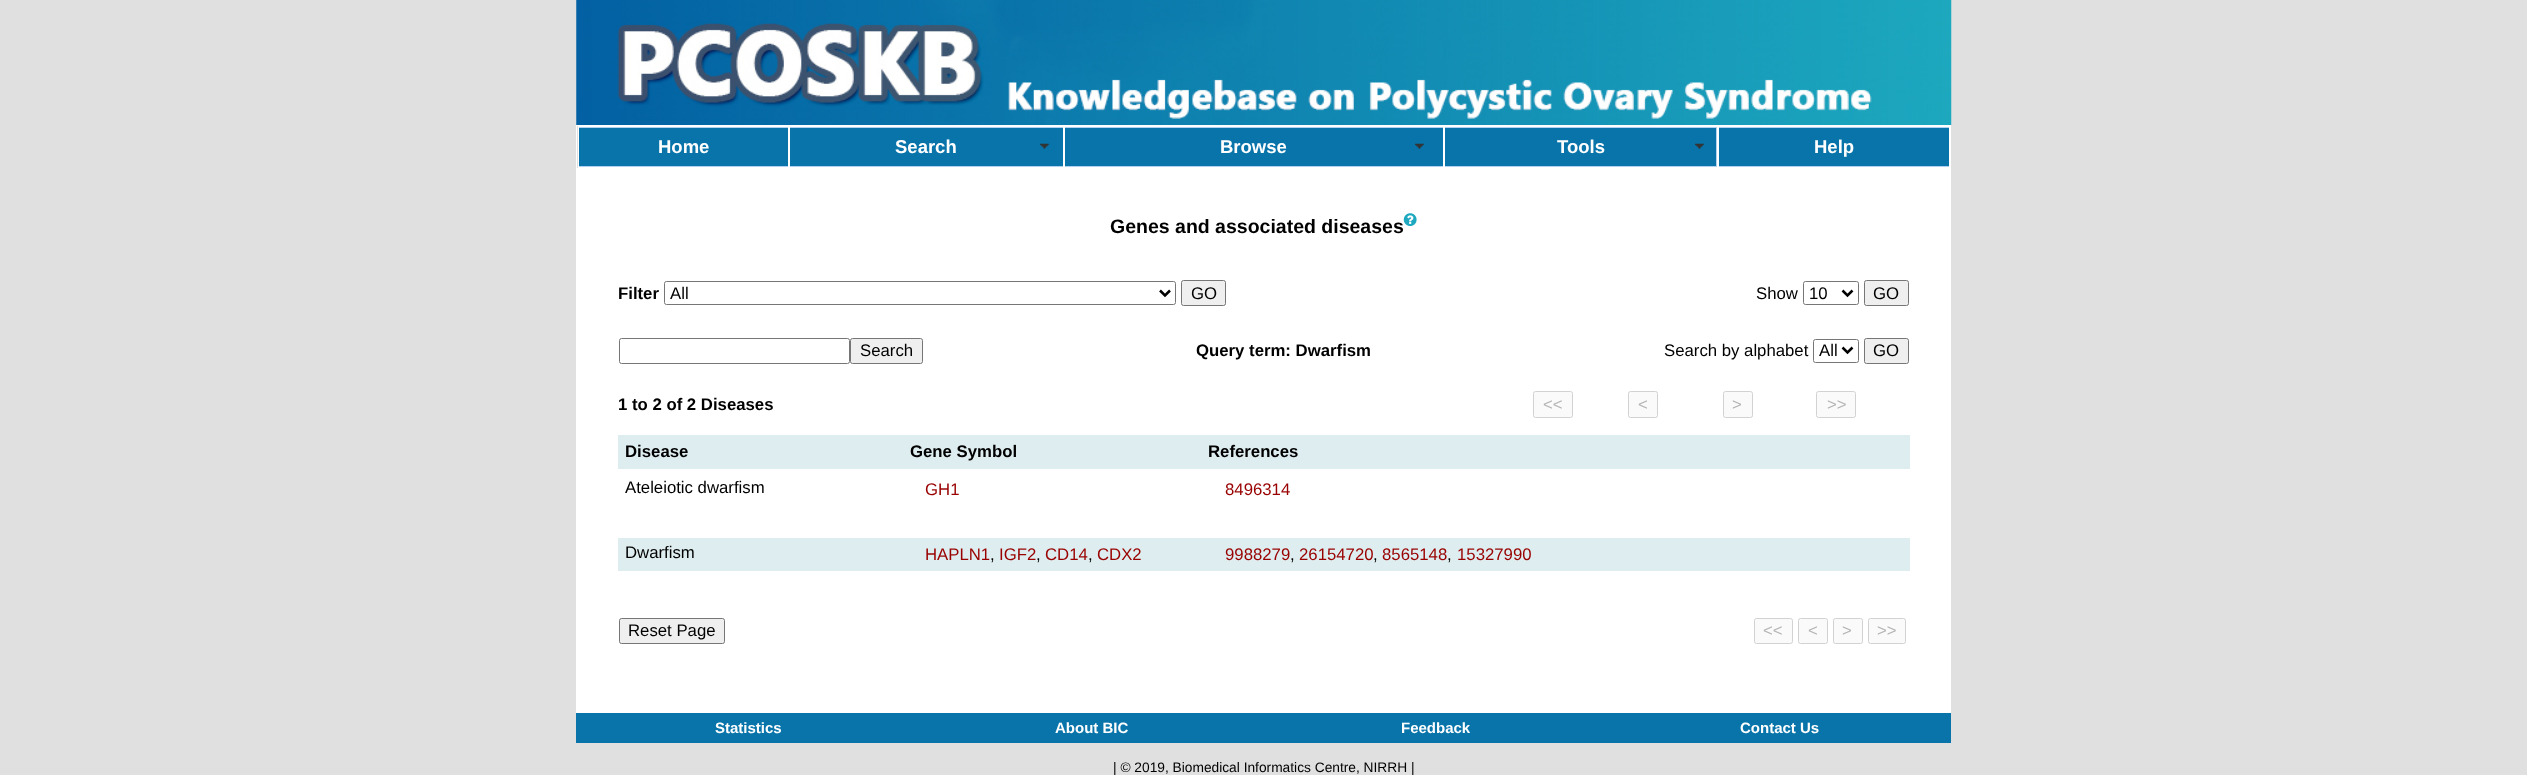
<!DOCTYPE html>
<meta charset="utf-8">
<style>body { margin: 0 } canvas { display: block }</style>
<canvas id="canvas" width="2527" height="775"></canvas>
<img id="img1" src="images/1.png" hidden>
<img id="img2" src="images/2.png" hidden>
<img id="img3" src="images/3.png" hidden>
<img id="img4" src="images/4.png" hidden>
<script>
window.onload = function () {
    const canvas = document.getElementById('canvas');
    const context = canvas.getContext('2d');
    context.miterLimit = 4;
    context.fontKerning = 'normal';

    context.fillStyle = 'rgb(224, 224, 224)';
    context.fillRect(0, 0, 2527, 775);
    context.drawImage(document.getElementById('img1'), 576, 0, 1376, 125);
    context.strokeStyle = 'rgb(255, 255, 255)';
    context.strokeRect(576.5, 125.5, 1374, 43);
    context.fillStyle = 'rgb(176, 209, 242)';
    context.fillRect(579, 127, 1370, 40);
    context.strokeRect(578.5, 126.5, 210, 41);
    context.fillStyle = 'rgb(9, 116, 170)';
    context.fillRect(579, 128, 209, 38);
    context.strokeRect(789.5, 126.5, 274, 41);
    context.fillRect(790, 128, 273, 38);
    context.drawImage(document.getElementById('img2'), 1040, 143, 9, 6);
    context.strokeRect(1064.5, 126.5, 379, 41);
    context.fillRect(1065, 128, 378, 38);
    context.drawImage(document.getElementById('img3'), 1415, 143, 9, 6);
    context.strokeRect(1444.5, 126.5, 273, 41);
    context.fillRect(1445, 128, 271, 38);
    context.drawImage(document.getElementById('img2'), 1695, 143, 9, 6);
    context.strokeRect(1718.5, 126.5, 231, 41);
    context.fillRect(1719, 128, 230, 38);
    context.fillStyle = 'rgb(255, 255, 255)';
    context.fillRect(576, 169, 1375, 544);
    context.beginPath();
    context.roundRect(664.5, 281.5, 511, 23, 2);
    context.strokeStyle = 'rgb(118, 118, 118)';
    context.stroke();
    context.beginPath();
    context.moveTo(1160, 290.5);
    context.lineTo(1165, 295.5);
    context.lineTo(1170, 290.5);
    context.strokeStyle = 'rgb(0, 0, 0)';
    context.lineWidth = 2.5;
    context.stroke();
    context.fillStyle = 'rgb(239, 239, 239)';
    context.beginPath();
    context.roundRect(1181.5, 280.5, 44, 25, 2);
    context.fill();
    context.strokeStyle = 'rgb(118, 118, 118)';
    context.lineWidth = 1;
    context.stroke();
    context.beginPath();
    context.roundRect(1803.5, 281.5, 55, 23, 2);
    context.stroke();
    context.beginPath();
    context.moveTo(1842.5, 290.5);
    context.lineTo(1847.5, 295.5);
    context.lineTo(1852.5, 290.5);
    context.strokeStyle = 'rgb(0, 0, 0)';
    context.lineWidth = 2.5;
    context.stroke();
    context.beginPath();
    context.roundRect(1864.5, 280.5, 44, 25, 2);
    context.fill();
    context.strokeStyle = 'rgb(118, 118, 118)';
    context.lineWidth = 1;
    context.stroke();
    context.beginPath();
    context.roundRect(619.5, 338.5, 230, 25, 2);
    context.stroke();
    context.beginPath();
    context.roundRect(850.5, 338.5, 72, 25, 2);
    context.fill();
    context.stroke();
    context.beginPath();
    context.roundRect(1813.5, 339.5, 45, 23, 2);
    context.stroke();
    context.beginPath();
    context.moveTo(1842.5, 347.5);
    context.lineTo(1847.5, 352.5);
    context.lineTo(1852.5, 347.5);
    context.strokeStyle = 'rgb(0, 0, 0)';
    context.lineWidth = 2.5;
    context.stroke();
    context.beginPath();
    context.roundRect(1864.5, 338.5, 44, 25, 2);
    context.fill();
    context.strokeStyle = 'rgb(118, 118, 118)';
    context.lineWidth = 1;
    context.stroke();
    context.fillStyle = 'rgb(250, 250, 250)';
    context.beginPath();
    context.roundRect(1533.5, 391.5, 39, 26, 2);
    context.fill();
    context.strokeStyle = 'rgb(210, 210, 210)';
    context.stroke();
    context.beginPath();
    context.roundRect(1628.5, 391.5, 29, 26, 2);
    context.fill();
    context.stroke();
    context.beginPath();
    context.roundRect(1723.5, 391.5, 29, 26, 2);
    context.fill();
    context.stroke();
    context.beginPath();
    context.roundRect(1816.5, 391.5, 39, 26, 2);
    context.fill();
    context.stroke();
    context.fillStyle = 'rgb(222, 237, 239)';
    context.fillRect(618, 435, 1292, 34);
    context.fillRect(618, 538, 1292, 33);
    context.fillStyle = 'rgb(239, 239, 239)';
    context.beginPath();
    context.roundRect(619.5, 618.5, 105, 25, 2);
    context.fill();
    context.strokeStyle = 'rgb(118, 118, 118)';
    context.stroke();
    context.fillStyle = 'rgb(250, 250, 250)';
    context.beginPath();
    context.roundRect(1754.5, 618.5, 38, 25, 2);
    context.fill();
    context.strokeStyle = 'rgb(210, 210, 210)';
    context.stroke();
    context.beginPath();
    context.roundRect(1798.5, 618.5, 29, 25, 2);
    context.fill();
    context.stroke();
    context.beginPath();
    context.roundRect(1833.5, 618.5, 29, 25, 2);
    context.fill();
    context.stroke();
    context.beginPath();
    context.roundRect(1868.5, 618.5, 37, 25, 2);
    context.fill();
    context.stroke();
    context.fillStyle = 'rgb(9, 116, 170)';
    context.fillRect(576, 713, 1375, 30);
    context.font = 'bold 18.5px Liberation Sans';
    context.fillStyle = 'rgb(255, 255, 255)';
    context.fillText('Home', 658, 153);
    context.fillText('Search', 895, 153);
    context.fillText('Browse', 1220, 153);
    context.fillText('Tools', 1557, 153);
    context.fillText('Help', 1814, 153);
    context.font = 'bold 19.5px Liberation Sans';
    context.fillStyle = 'rgb(0, 0, 0)';
    context.fillText('Genes and associated diseases', 1110, 233);
    context.drawImage(document.getElementById('img4'), 1403, 213, 14, 14);
    context.font = 'bold 16.75px Liberation Sans';
    context.fillText('Filter', 618, 299);
    context.font = '16.75px Liberation Sans';
    context.fillText('All', 670, 299);
    context.fillText('GO', 1191, 299);
    context.fillText('Show', 1756, 299);
    context.fillText('10', 1809, 299);
    context.fillText('GO', 1873, 299);
    context.fillText('Search', 860, 356);
    context.font = 'bold 16.75px Liberation Sans';
    context.fillText('Query term: Dwarfism', 1196, 356);
    context.font = '16.75px Liberation Sans';
    context.fillText('Search by alphabet', 1664, 356);
    context.fillText('All', 1819, 356);
    context.fillText('GO', 1873, 356);
    context.font = 'bold 16.75px Liberation Sans';
    context.fillText('1 to 2 of 2 Diseases', 618, 410);
    context.font = '16.75px Liberation Sans';
    context.fillStyle = 'rgb(180, 180, 180)';
    context.fillText('<<', 1543, 410);
    context.fillText('<', 1638, 410);
    context.fillText('>', 1732, 410);
    context.fillText('>>', 1827, 410);
    context.font = 'bold 16.75px Liberation Sans';
    context.fillStyle = 'rgb(0, 0, 0)';
    context.fillText('Disease', 625, 457);
    context.fillText('Gene Symbol', 910, 457);
    context.fillText('References', 1208, 457);
    context.font = '16.75px Liberation Sans';
    context.fillText('Ateleiotic dwarfism', 625, 493);
    context.fillStyle = 'rgb(153, 0, 0)';
    context.fillText('GH1', 925, 495);
    context.fillText('8496314', 1225, 495);
    context.fillStyle = 'rgb(0, 0, 0)';
    context.fillText('Dwarfism', 625, 558);
    context.fillStyle = 'rgb(153, 0, 0)';
    context.fillText('HAPLN1', 925, 560);
    context.fillStyle = 'rgb(0, 0, 0)';
    context.fillText(',', 990, 560);
    context.fillStyle = 'rgb(153, 0, 0)';
    context.fillText('IGF2', 999, 560);
    context.fillStyle = 'rgb(0, 0, 0)';
    context.fillText(',', 1036, 560);
    context.fillStyle = 'rgb(153, 0, 0)';
    context.fillText('CD14', 1045, 560);
    context.fillStyle = 'rgb(0, 0, 0)';
    context.fillText(',', 1088, 560);
    context.fillStyle = 'rgb(153, 0, 0)';
    context.fillText('CDX2', 1097, 560);
    context.fillText('9988279', 1225, 560);
    context.fillStyle = 'rgb(0, 0, 0)';
    context.fillText(',', 1290, 560);
    context.fillStyle = 'rgb(153, 0, 0)';
    context.fillText('26154720', 1299, 560);
    context.fillStyle = 'rgb(0, 0, 0)';
    context.fillText(',', 1373, 560);
    context.fillStyle = 'rgb(153, 0, 0)';
    context.fillText('8565148', 1382, 560);
    context.fillStyle = 'rgb(0, 0, 0)';
    context.fillText(',', 1447, 560);
    context.fillStyle = 'rgb(153, 0, 0)';
    context.fillText('15327990', 1457, 560);
    context.fillStyle = 'rgb(0, 0, 0)';
    context.fillText('Reset Page', 628, 636);
    context.fillStyle = 'rgb(180, 180, 180)';
    context.fillText('<<', 1763, 636);
    context.fillText('<', 1808, 636);
    context.fillText('>', 1842, 636);
    context.fillText('>>', 1877, 636);
    context.font = 'bold 15px Liberation Sans';
    context.fillStyle = 'rgb(255, 255, 255)';
    context.fillText('Statistics', 715, 733);
    context.fillText('About BIC', 1055, 733);
    context.fillText('Feedback', 1401, 733);
    context.fillText('Contact Us', 1740, 733);
    context.font = '13.75px Liberation Sans';
    context.fillStyle = 'rgb(0, 0, 0)';
    context.fillText('| © 2019, Biomedical Informatics Centre, NIRRH |', 1113, 772);
};
</script>
